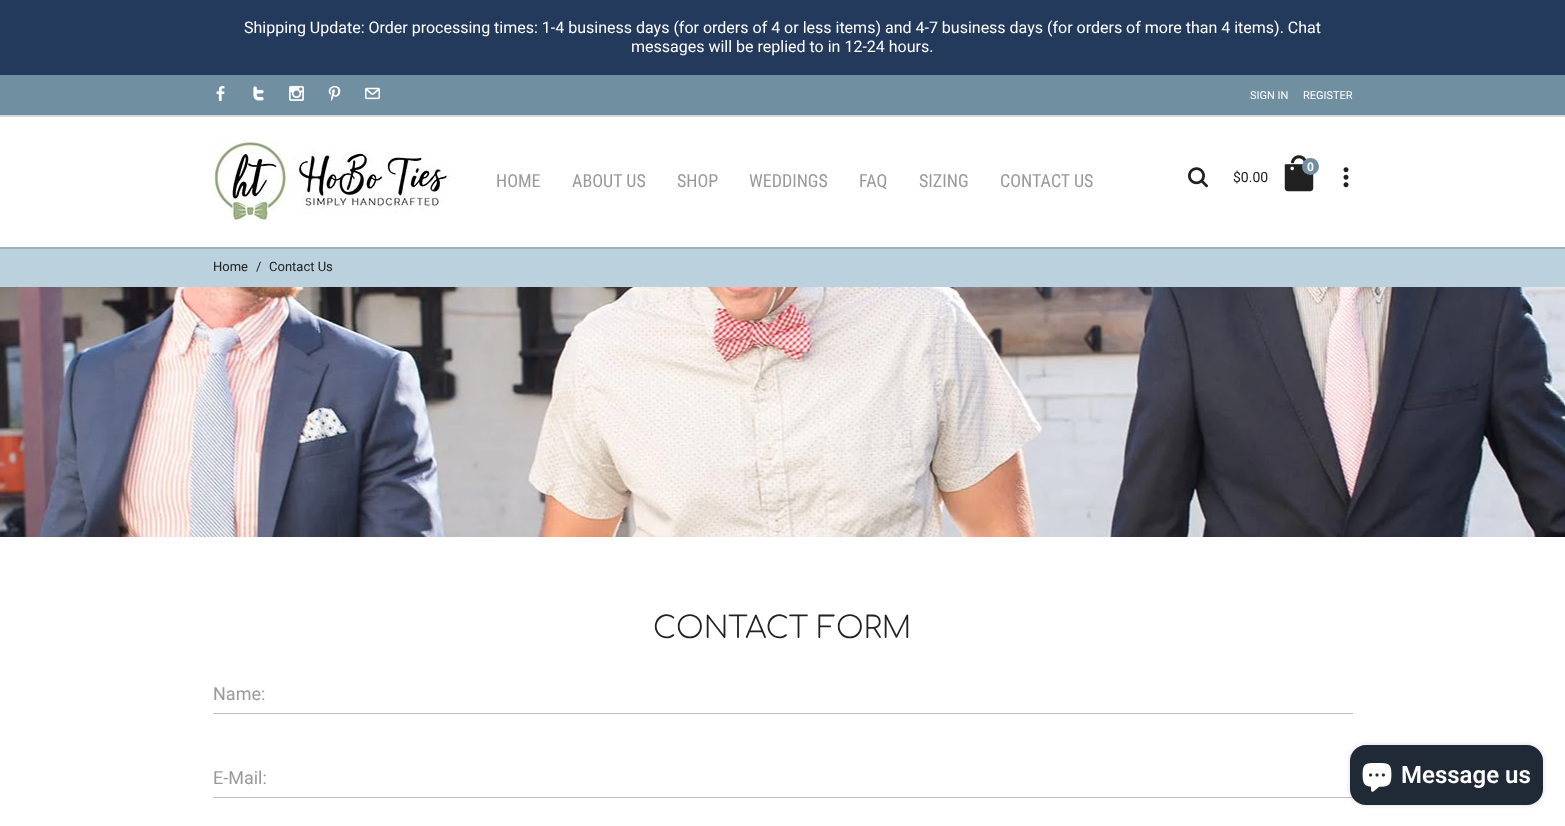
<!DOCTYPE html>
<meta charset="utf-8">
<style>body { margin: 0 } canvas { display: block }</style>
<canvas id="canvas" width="1565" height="826"></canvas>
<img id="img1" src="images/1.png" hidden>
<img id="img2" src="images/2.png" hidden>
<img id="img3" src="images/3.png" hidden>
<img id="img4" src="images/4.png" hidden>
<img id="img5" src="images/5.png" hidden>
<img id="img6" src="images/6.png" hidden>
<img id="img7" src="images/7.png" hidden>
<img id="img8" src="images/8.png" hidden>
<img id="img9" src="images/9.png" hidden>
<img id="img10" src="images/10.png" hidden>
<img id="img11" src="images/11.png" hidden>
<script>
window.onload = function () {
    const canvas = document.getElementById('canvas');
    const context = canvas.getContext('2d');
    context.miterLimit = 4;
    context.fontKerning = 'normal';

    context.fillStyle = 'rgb(255, 255, 255)';
    context.fillRect(0, 0, 1565, 826);
    context.fillStyle = 'rgb(36, 58, 92)';
    context.fillRect(0, 0, 1565, 75);
    context.fillStyle = 'rgb(187, 209, 221)';
    context.fillRect(0, 247, 1565, 40);
    context.save();
    context.beginPath();
    context.rect(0, 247, 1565, 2);
    context.clip();
    context.fillStyle = 'rgba(0, 0, 0, 0.15)';
    context.filter = 'blur(0.5px)';
    context.beginPath();
    context.rect(0, 77, 1565, 172);
    context.fill();
    context.filter = 'none';
    context.restore();
    context.fillStyle = 'rgba(0, 0, 0, 0.15)';
    context.filter = 'blur(0.5px)';
    context.beginPath();
    context.rect(0, 77, 1565, 40);
    context.fill();
    context.filter = 'none';
    context.fillStyle = 'rgb(112, 144, 162)';
    context.fillRect(0, 75, 1565, 40);
    context.drawImage(document.getElementById('img1'), 216, 85, 9, 16);
    context.drawImage(document.getElementById('img2'), 253, 86, 11, 15);
    context.drawImage(document.getElementById('img3'), 289, 85, 15, 16);
    context.drawImage(document.getElementById('img4'), 328, 85, 13, 16);
    context.drawImage(document.getElementById('img5'), 365, 87, 15, 13);
    context.drawImage(document.getElementById('img6'), 213, 141, 237, 80);
    context.drawImage(document.getElementById('img7'), 1188, 167, 20, 21);
    context.drawImage(document.getElementById('img8'), 1284, 155, 30, 37);
    context.beginPath();
    context.arc(1310.5, 166.5, 8.5, 0, 2 * Math.PI);
    context.fill();
    context.drawImage(document.getElementById('img9'), 1343, 167, 6, 21);
    context.drawImage(document.getElementById('img10'), 0, 287, 1565, 250);
    context.fillStyle = 'rgb(190, 190, 190)';
    context.fillRect(213, 713, 1140, 1);
    context.fillRect(213, 797, 1140, 1);
    context.fillStyle = 'rgba(0, 0, 0, 0.15)';
    context.filter = 'blur(2.5px)';
    context.beginPath();
    context.roundRect(1350, 745, 193, 60, 16);
    context.fill();
    context.filter = 'none';
    context.fillStyle = 'rgb(32, 42, 54)';
    context.beginPath();
    context.roundRect(1350, 745, 193, 60, 16);
    context.fill();
    context.drawImage(document.getElementById('img11'), 1362, 763, 30, 29);
    context.font = '16px Roboto';
    context.fillStyle = 'rgb(255, 255, 255)';
    context.fillText('Shipping Update: Order processing times: 1-4 business days (for orders of 4 or less items) and 4-7 business days (for orders of more than 4 items). Chat', 244, 33);
    context.fillText('messages will be replied to in 12-24 hours.', 631, 52);
    context.font = '11px Roboto';
    context.fillText('SIGN IN', 1250, 99);
    context.fillText('REGISTER', 1303, 99);
    context.font = '18px Roboto Condensed';
    context.fillStyle = 'rgb(153, 153, 153)';
    context.fillText('HOME', 496, 187);
    context.fillText('ABOUT US', 572, 187);
    context.fillText('SHOP', 677, 187);
    context.fillText('WEDDINGS', 749, 187);
    context.fillText('FAQ', 859, 187);
    context.fillText('SIZING', 919, 187);
    context.fillText('CONTACT US', 1000, 187);
    context.font = 'bold 12px Roboto';
    context.fillStyle = 'rgb(255, 255, 255)';
    context.fillText('0', 1307, 171);
    context.font = '14px Roboto';
    context.fillStyle = 'rgb(33, 33, 33)';
    context.fillText('$0.00', 1233, 182);
    context.font = '13px Roboto';
    context.fillText('Home', 213, 271);
    context.fillText('/', 256, 271);
    context.fillText('Contact Us', 269, 271);
    context.font = '300 30px Comfortaa';
    context.fillText('CONTACT FORM', 653, 638);
    context.font = '18px Roboto';
    context.fillStyle = 'rgb(153, 153, 153)';
    context.fillText('Name:', 213, 700);
    context.fillText('E-Mail:', 213, 784);
    context.font = '600 24px Roboto';
    context.fillStyle = 'rgb(255, 255, 255)';
    context.fillText('Message us', 1401, 783);
};
</script>
